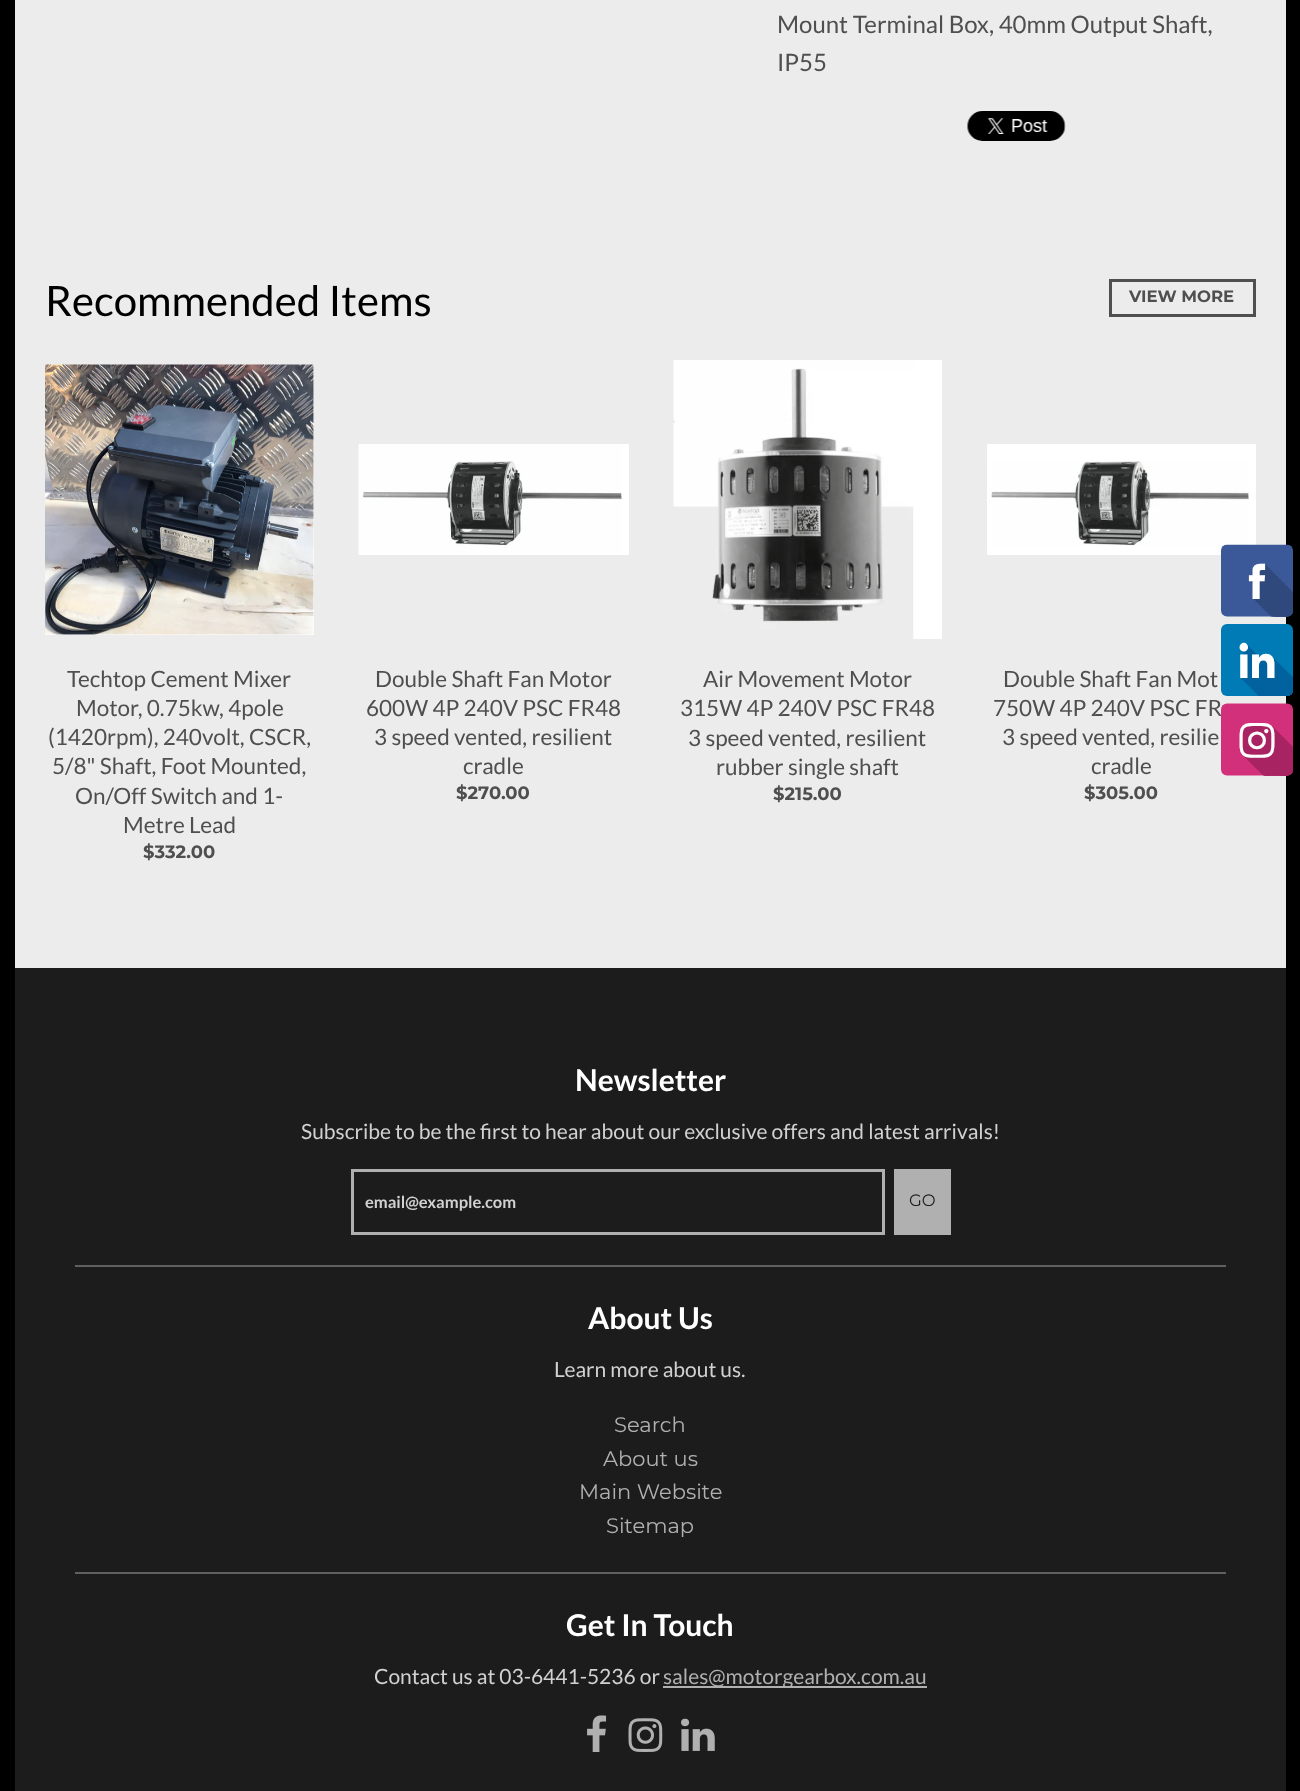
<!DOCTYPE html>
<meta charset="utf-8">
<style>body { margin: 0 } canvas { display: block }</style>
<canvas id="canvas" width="1300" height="1791"></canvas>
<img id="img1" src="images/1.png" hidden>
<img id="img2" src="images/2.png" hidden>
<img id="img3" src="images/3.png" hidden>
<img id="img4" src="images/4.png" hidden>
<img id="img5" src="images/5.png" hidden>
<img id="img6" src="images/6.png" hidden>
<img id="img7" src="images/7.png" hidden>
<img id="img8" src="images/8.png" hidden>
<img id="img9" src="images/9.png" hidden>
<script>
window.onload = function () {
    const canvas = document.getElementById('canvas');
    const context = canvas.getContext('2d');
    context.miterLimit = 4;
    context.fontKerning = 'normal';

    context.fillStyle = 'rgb(236, 236, 236)';
    context.fillRect(0, 0, 1300, 1791);
    context.fillStyle = 'rgb(0, 0, 0)';
    context.fillRect(1286, 0, 14, 1791);
    context.fillRect(0, 0, 15, 1791);
    context.drawImage(document.getElementById('img1'), 967, 111, 99, 30);
    context.strokeStyle = 'rgb(79, 79, 79)';
    context.lineWidth = 3;
    context.strokeRect(1110.5, 280.5, 144, 35);
    context.fillStyle = 'rgb(255, 255, 255)';
    context.fillRect(45, 365, 269, 270);
    context.drawImage(document.getElementById('img2'), 45, 364, 269, 271);
    context.fillRect(622, 444, 7, 111);
    context.drawImage(document.getElementById('img3'), 358, 444, 264, 111);
    context.fillRect(674, 360, 268, 279);
    context.drawImage(document.getElementById('img4'), 673, 360, 241, 279);
    context.fillRect(987, 444, 269, 111);
    context.drawImage(document.getElementById('img5'), 991, 461, 258, 85);
    context.fillStyle = 'rgb(28, 28, 28)';
    context.fillRect(15, 968, 1271, 823);
    context.fillStyle = 'rgb(96, 96, 96)';
    context.fillRect(75, 1265, 1151, 2);
    context.strokeStyle = 'rgb(176, 176, 176)';
    context.strokeRect(352.5, 1170.5, 531, 63);
    context.fillStyle = 'rgb(176, 176, 176)';
    context.fillRect(894, 1169, 57, 66);
    context.fillStyle = 'rgb(96, 96, 96)';
    context.fillRect(75, 1572, 1151, 2);
    context.fillStyle = 'rgb(176, 176, 176)';
    context.fillRect(663, 1686, 264, 2);
    context.drawImage(document.getElementById('img6'), 587, 1715, 20, 37);
    context.drawImage(document.getElementById('img7'), 628, 1718, 35, 34);
    context.drawImage(document.getElementById('img8'), 681, 1718, 34, 33);
    context.font = '24px Lato';
    context.fillStyle = 'rgb(79, 79, 79)';
    context.fillText('Mount Terminal Box, 40mm Output Shaft,', 777, 33);
    context.fillText('IP55', 777, 71);
    context.font = '42px Lato';
    context.fillStyle = 'rgb(0, 0, 0)';
    context.fillText('Recommended Items', 45, 316);
    context.font = 'bold 16.5px Montserrat';
    context.fillStyle = 'rgb(79, 79, 79)';
    context.fillText('VIEW MORE', 1129, 302);
    context.font = '22.5px Lato';
    context.fillText('Techtop Cement Mixer', 67, 687);
    context.fillText('Motor, 0.75kw, 4pole', 76, 716);
    context.fillText('(1420rpm), 240volt, CSCR,', 48, 745);
    context.fillText('5/8" Shaft, Foot Mounted,', 52, 774);
    context.fillText('On/Off Switch and 1-', 75, 804);
    context.fillText('Metre Lead', 123, 833);
    context.font = 'bold 18px Montserrat';
    context.fillText('$332.00', 143, 858);
    context.font = '22.5px Lato';
    context.fillText('Double Shaft Fan Motor', 375, 687);
    context.fillText('600W 4P 240V PSC FR48', 366, 716);
    context.fillText('3 speed vented, resilient', 374, 745);
    context.fillText('cradle', 463, 774);
    context.font = 'bold 18px Montserrat';
    context.fillText('$270.00', 456, 799);
    context.font = '22.5px Lato';
    context.fillText('Air Movement Motor', 703, 687);
    context.fillText('315W 4P 240V PSC FR48', 680, 716);
    context.fillText('3 speed vented, resilient', 688, 746);
    context.fillText('rubber single shaft', 716, 775);
    context.font = 'bold 18px Montserrat';
    context.fillText('$215.00', 773, 800);
    context.font = '22.5px Lato';
    context.fillText('Double Shaft Fan Mot', 1003, 687);
    context.fillText('750W 4P 240V PSC FR', 993, 716);
    context.fillText('3 speed vented, resilie', 1002, 745);
    context.fillText('cradle', 1091, 774);
    context.font = 'bold 18px Montserrat';
    context.fillText('$305.00', 1084, 799);
    context.font = 'bold 30px Lato';
    context.fillStyle = 'rgb(255, 255, 255)';
    context.fillText('Newsletter', 575, 1091);
    context.font = '21px Lato';
    context.fillStyle = 'rgb(209, 209, 209)';
    context.fillText('Subscribe to be the first to hear about our exclusive offers and latest arrivals!', 301, 1139);
    context.font = 'bold 16.5px Lato';
    context.fillText('email@example.com', 365, 1208);
    context.font = '16.5px Montserrat';
    context.fillStyle = 'rgb(28, 28, 28)';
    context.fillText('GO', 909, 1206);
    context.font = 'bold 30px Lato';
    context.fillStyle = 'rgb(255, 255, 255)';
    context.fillText('About Us', 588, 1329);
    context.font = '21px Lato';
    context.fillStyle = 'rgb(209, 209, 209)';
    context.fillText('Learn more about us.', 554, 1377);
    context.font = '21px Montserrat';
    context.fillStyle = 'rgb(176, 176, 176)';
    context.fillText('Search', 614, 1432);
    context.fillText('About us', 603, 1466);
    context.fillText('Main Website', 579, 1499);
    context.fillText('Sitemap', 606, 1533);
    context.font = 'bold 30px Lato';
    context.fillStyle = 'rgb(255, 255, 255)';
    context.fillText('Get In Touch', 566, 1636);
    context.font = '21px Lato';
    context.fillStyle = 'rgb(209, 209, 209)';
    context.fillText('Contact us at 03-6441-5236 or', 374, 1684);
    context.fillStyle = 'rgb(176, 176, 176)';
    context.fillText('sales@motorgearbox.com.au', 663, 1684);
    context.drawImage(document.getElementById('img9'), 1221, 544, 72, 232);
};
</script>
